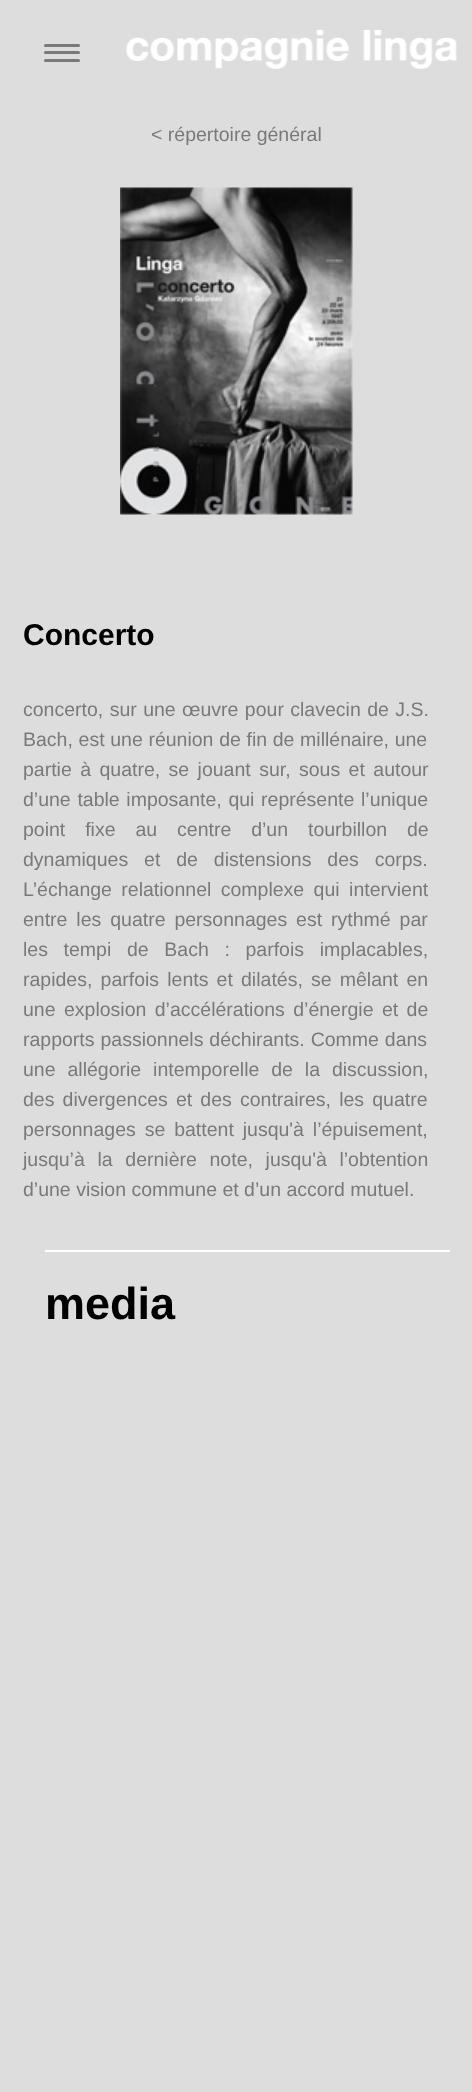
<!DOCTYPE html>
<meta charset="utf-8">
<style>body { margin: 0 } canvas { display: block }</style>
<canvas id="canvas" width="472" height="2092"></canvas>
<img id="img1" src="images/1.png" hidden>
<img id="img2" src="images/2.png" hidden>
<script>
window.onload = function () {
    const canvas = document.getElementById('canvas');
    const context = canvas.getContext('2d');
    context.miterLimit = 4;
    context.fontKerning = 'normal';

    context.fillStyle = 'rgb(221, 221, 221)';
    context.fillRect(0, 0, 472, 2092);
    context.fillStyle = 'rgb(122, 121, 119)';
    context.beginPath();
    context.roundRect(44, 44, 36, 3, 1.5);
    context.fill();
    context.beginPath();
    context.roundRect(44, 51, 36, 3, 1.5);
    context.fill();
    context.beginPath();
    context.roundRect(44, 59, 36, 3, 1.5);
    context.fill();
    context.drawImage(document.getElementById('img1'), 126, 30, 331, 39);
    context.drawImage(document.getElementById('img2'), 120, 187, 233, 328);
    context.fillStyle = 'rgb(255, 255, 255)';
    context.fillRect(45, 1250, 405, 2);
    context.font = '19.5px Liberation Sans';
    context.fillStyle = 'rgb(122, 121, 119)';
    context.fillText('< répertoire général', 151, 141);
    context.font = 'bold 30px Liberation Sans';
    context.fillStyle = 'rgb(0, 0, 0)';
    context.fillText('Concerto', 23, 645);
    context.wordSpacing = '1px';
    context.font = '19.5px Liberation Sans';
    context.fillStyle = 'rgb(122, 121, 119)';
    context.fillText('concerto, sur une œuvre pour clavecin de J.S.', 23, 716);
    context.wordSpacing = '0.25px';
    context.fillText('Bach, est une réunion de fin de millénaire, une', 23, 746);
    context.wordSpacing = '3px';
    context.fillText('partie à quatre, se jouant sur, sous et autour', 23, 776);
    context.wordSpacing = '1.25px';
    context.fillText('d’une table imposante, qui représente l’unique', 23, 806);
    context.wordSpacing = '14.5px';
    context.fillText('point fixe au centre d’un tourbillon de', 23, 836);
    context.wordSpacing = '10.5px';
    context.fillText('dynamiques et de distensions des corps.', 23, 866);
    context.wordSpacing = '4px';
    context.fillText('L’échange relationnel complexe qui intervient', 23, 896);
    context.wordSpacing = '3.5px';
    context.fillText('entre les quatre personnages est rythmé par', 23, 926);
    context.wordSpacing = '10.25px';
    context.fillText('les tempi de Bach : parfois implacables,', 23, 956);
    context.wordSpacing = '2.75px';
    context.fillText('rapides, parfois lents et dilatés, se mêlant en', 23, 986);
    context.wordSpacing = '3px';
    context.fillText('une explosion d’accélérations d’énergie et de', 23, 1016);
    context.wordSpacing = '0.5px';
    context.fillText('rapports passionnels déchirants. Comme dans', 23, 1046);
    context.wordSpacing = '6.5px';
    context.fillText('une allégorie intemporelle de la discussion,', 23, 1076);
    context.wordSpacing = '2.75px';
    context.fillText('des divergences et des contraires, les quatre', 23, 1106);
    context.wordSpacing = '3.5px';
    context.fillText('personnages se battent jusqu\'à l’épuisement,', 23, 1136);
    context.wordSpacing = '7.25px';
    context.fillText('jusqu’à la dernière note, jusqu\'à l’obtention', 23, 1166);
    context.wordSpacing = '0px';
    context.fillText('d’une vision commune et d’un accord mutuel.', 23, 1196);
    context.font = 'bold 45px Liberation Sans';
    context.fillStyle = 'rgb(0, 0, 0)';
    context.fillText('media', 45, 1319);
};
</script>
